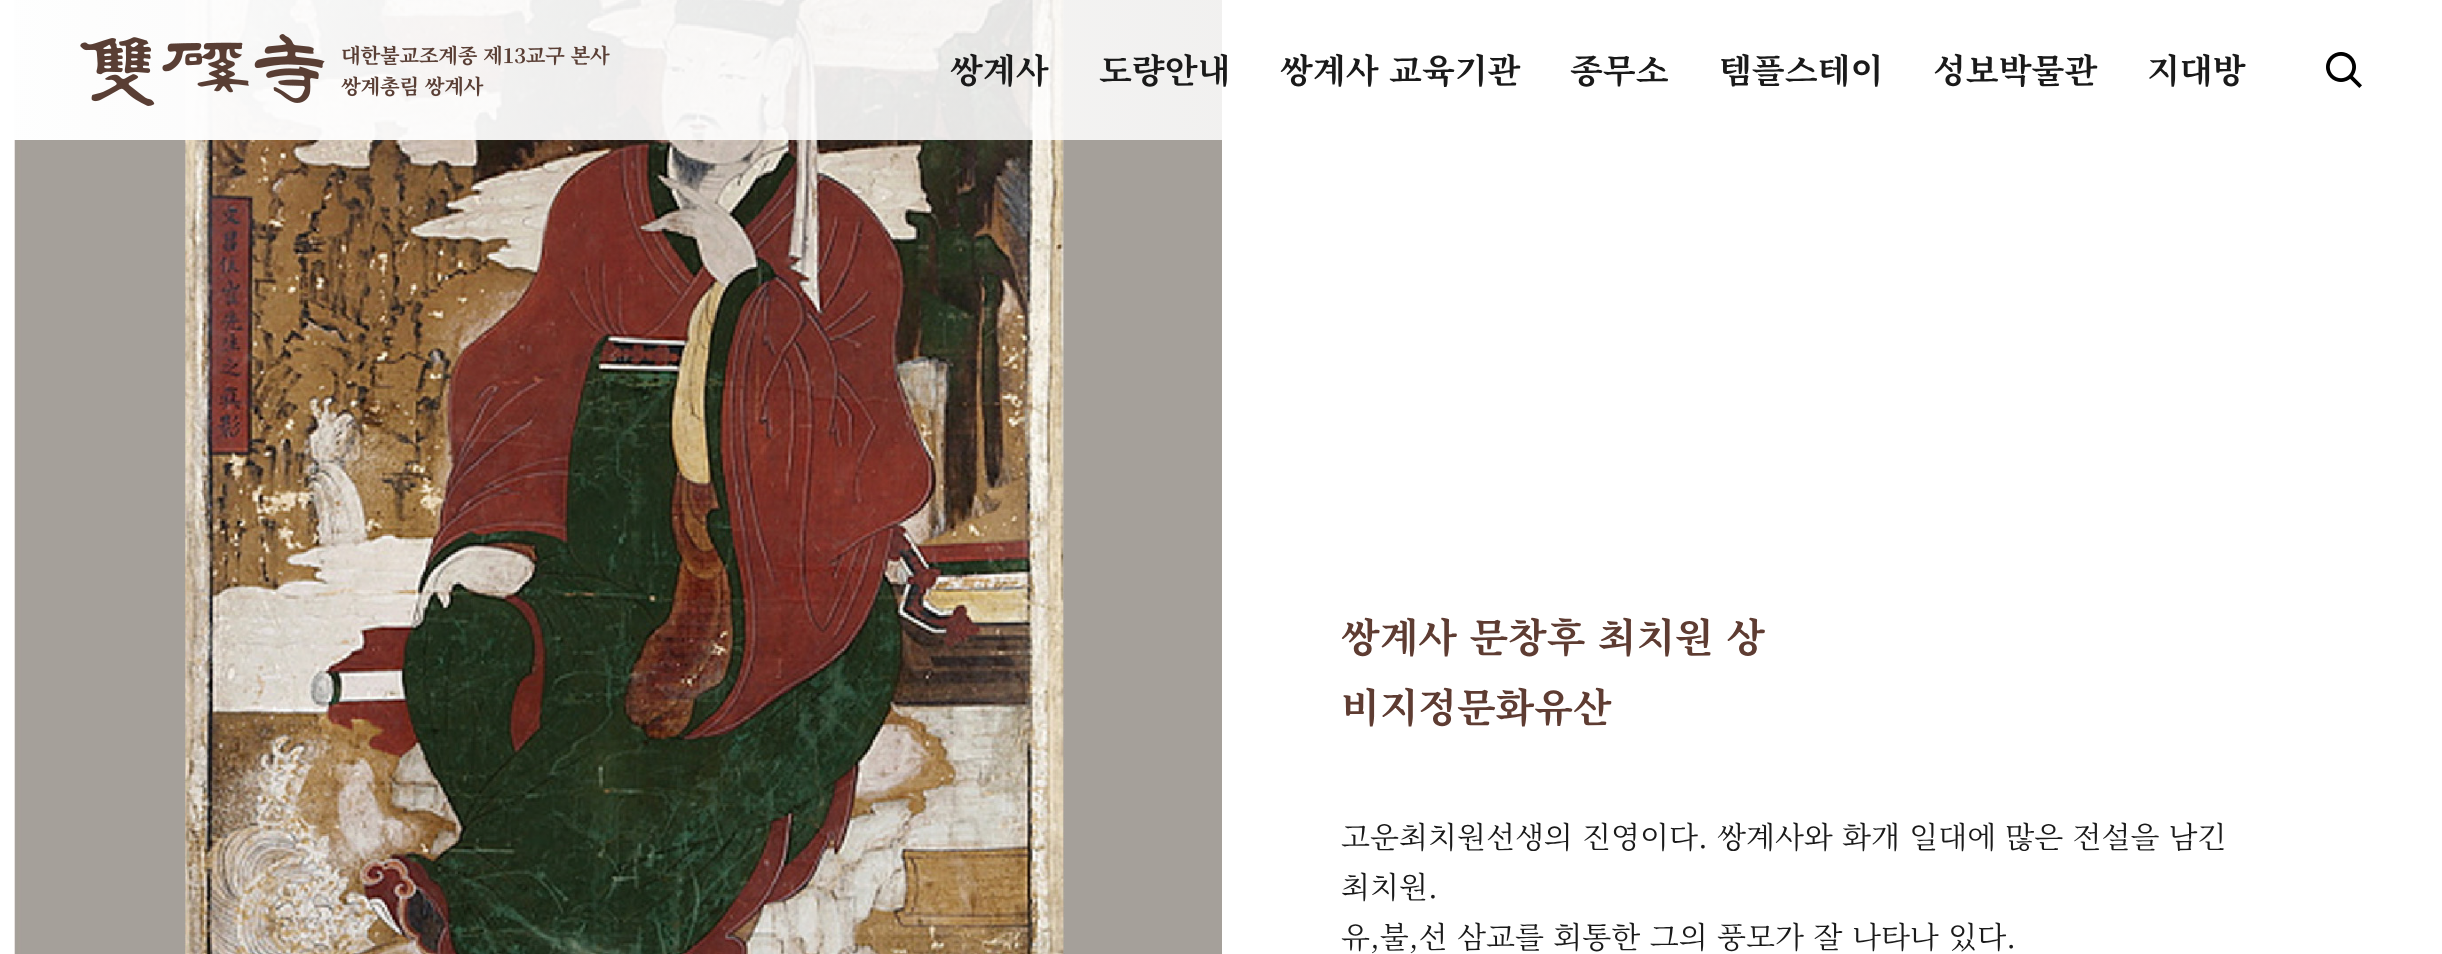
<!DOCTYPE html>
<meta charset="utf-8">
<style>body { margin: 0 } canvas { display: block }</style>
<canvas id="canvas" width="2442" height="954"></canvas>
<img id="img1" src="images/3.png" hidden>
<img id="img2" src="images/1.png" hidden>
<img id="img3" src="images/2.png" hidden>
<script>
window.onload = function () {
    const canvas = document.getElementById('canvas');
    const context = canvas.getContext('2d');
    context.miterLimit = 4;
    context.fontKerning = 'normal';
    let gradient;

    context.fillStyle = 'rgb(255, 255, 255)';
    context.fillRect(0, 0, 2442, 954);
    context.drawImage(document.getElementById('img1'), 14, 0, 1208, 954);
    gradient = context.createLinearGradient(0, 70, 2442, 70);
    gradient.addColorStop(0, 'rgb(254, 254, 254)');
    gradient.addColorStop(1, 'rgba(255, 255, 255, 0.7)');
    context.fillStyle = gradient;
    context.fillRect(14, 0, 1208, 140);
    context.drawImage(document.getElementById('img2'), 80, 34, 530, 72);
    context.drawImage(document.getElementById('img3'), 2326, 52, 36, 36);
    context.font = 'bold 34px Noto Serif KR';
    context.fillStyle = 'rgb(26, 26, 26)';
    context.fillText('쌍계사', 950, 83);
    context.fillText('도량안내', 1099, 83);
    context.wordSpacing = '2px';
    context.fillText('쌍계사 교육기관', 1280, 83);
    context.wordSpacing = '0px';
    context.fillText('종무소', 1570, 83);
    context.fillText('템플스테이', 1719, 83);
    context.fillText('성보박물관', 1933, 83);
    context.fillText('지대방', 2147, 83);
    context.wordSpacing = '2.5px';
    context.font = 'bold 40px Noto Serif KR';
    context.fillStyle = 'rgb(94, 60, 50)';
    context.fillText('쌍계사 문창후 최치원 상', 1341, 652);
    context.wordSpacing = '0px';
    context.fillText('비지정문화유산', 1341, 722);
    context.wordSpacing = '1.5px';
    context.font = '30px Noto Serif KR';
    context.fillStyle = 'rgb(26, 26, 26)';
    context.fillText('고운최치원선생의 진영이다. 쌍계사와 화개 일대에 많은 전설을 남긴', 1341, 848);
    context.wordSpacing = '0px';
    context.fillText('최치원.', 1341, 898);
    context.wordSpacing = '1.75px';
    context.fillText('유,불,선 삼교를 회통한 그의 풍모가 잘 나타나 있다.', 1341, 948);
};
</script>
